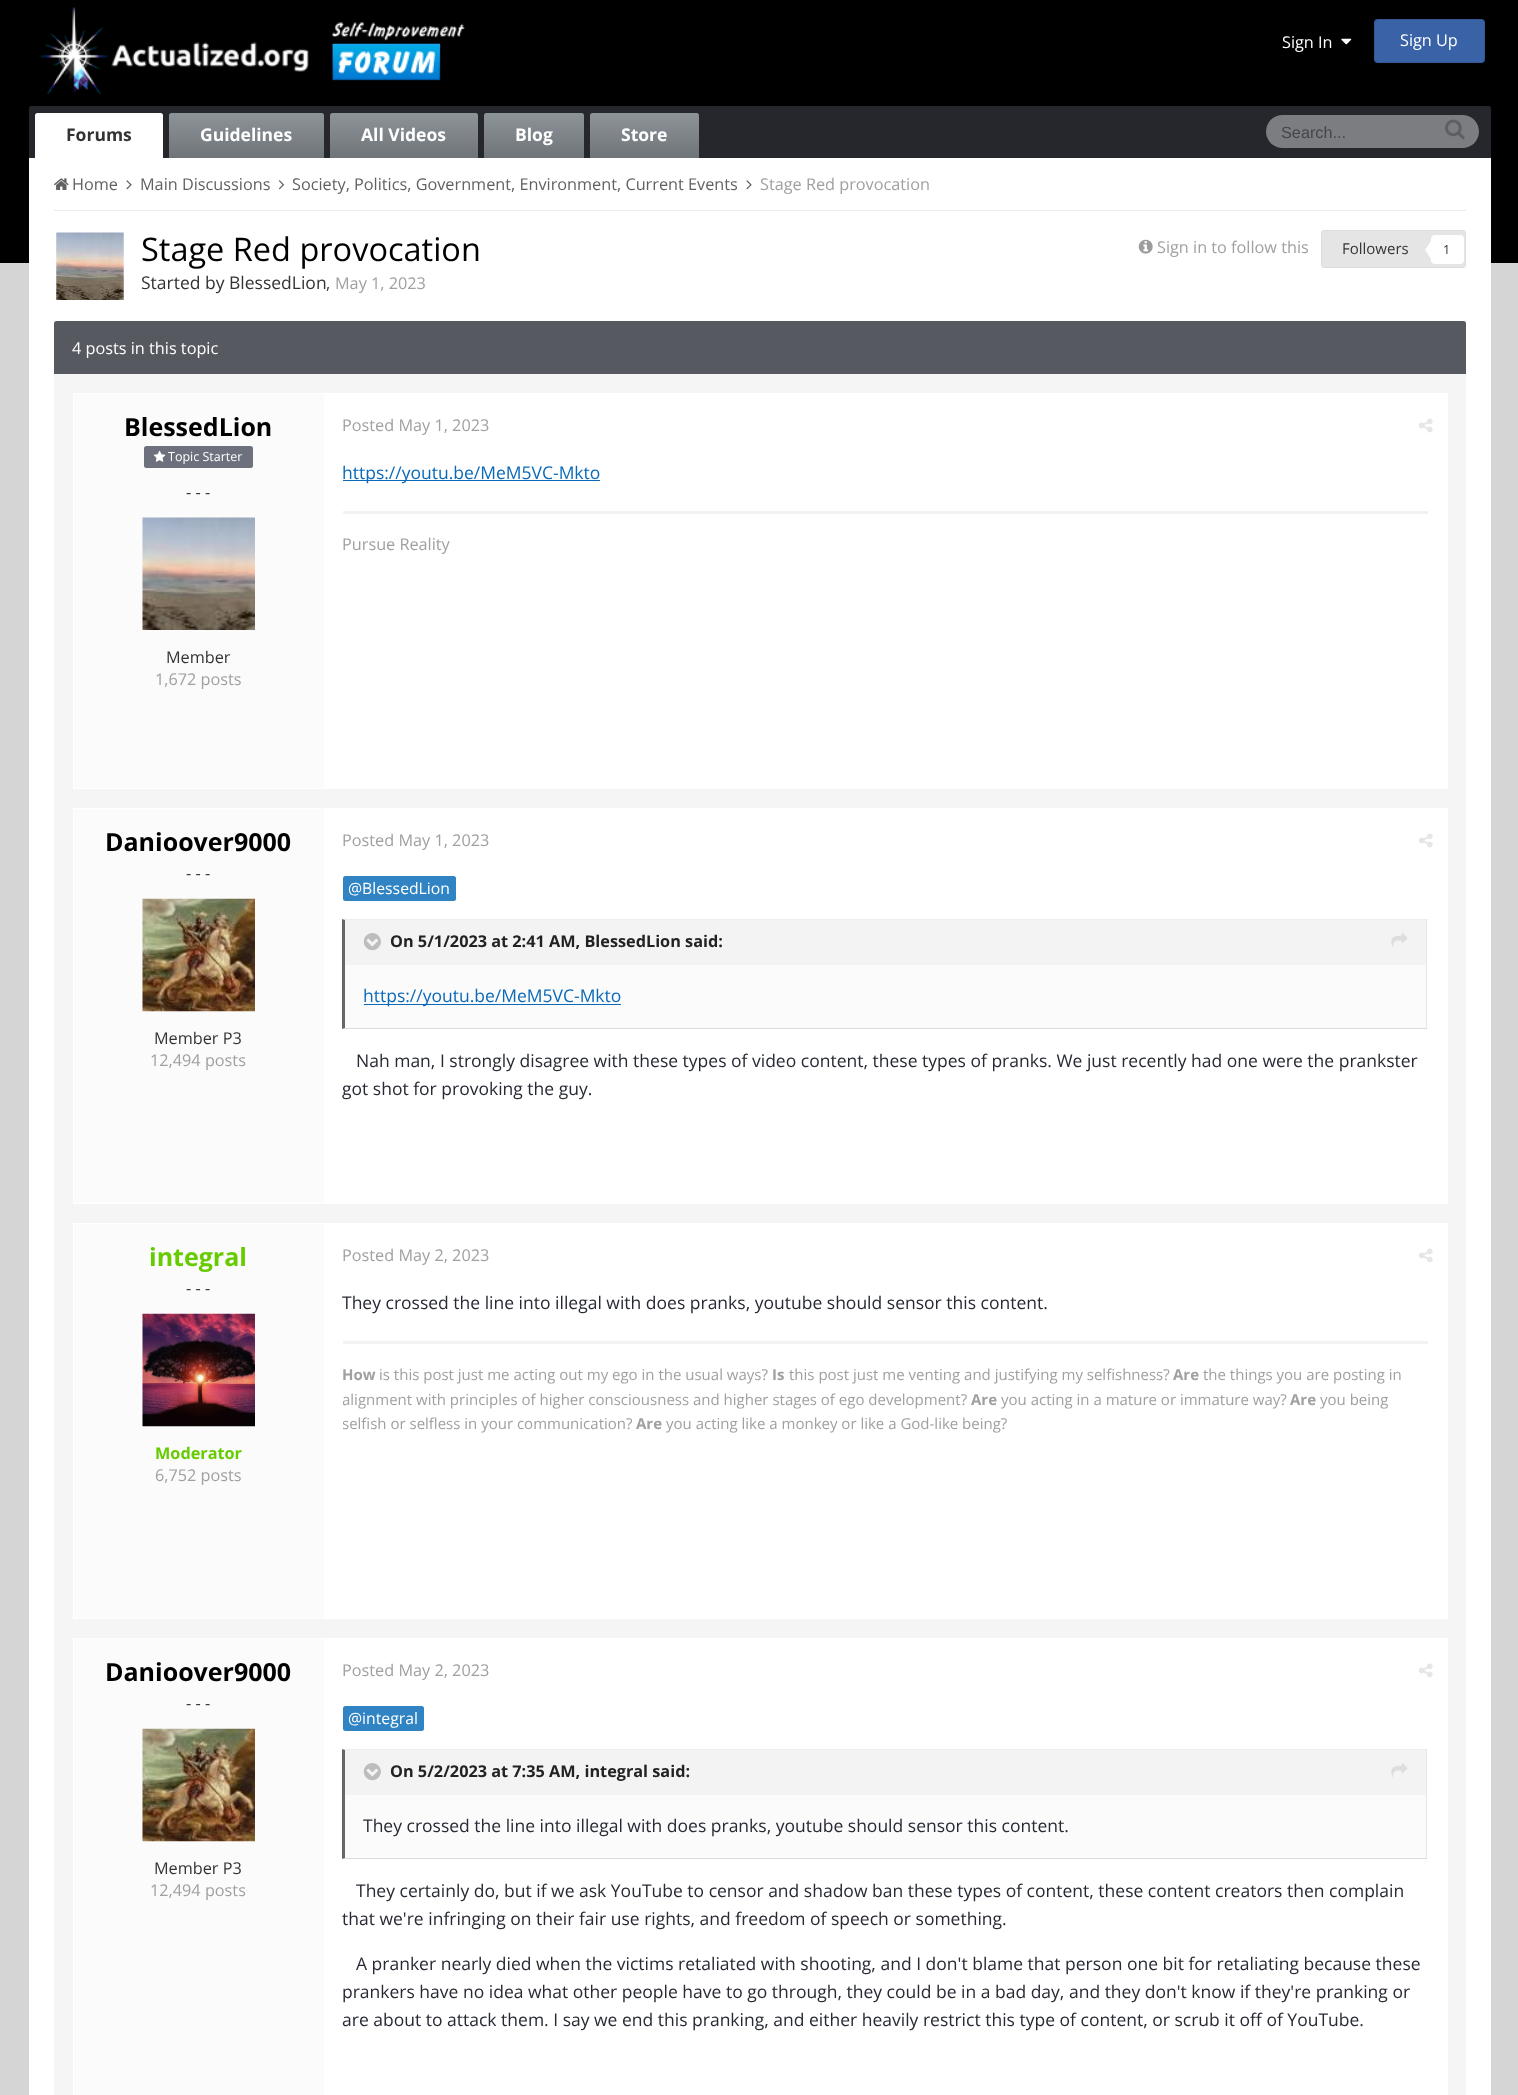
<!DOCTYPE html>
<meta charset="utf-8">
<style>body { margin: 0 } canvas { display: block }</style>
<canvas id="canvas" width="1518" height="2095"></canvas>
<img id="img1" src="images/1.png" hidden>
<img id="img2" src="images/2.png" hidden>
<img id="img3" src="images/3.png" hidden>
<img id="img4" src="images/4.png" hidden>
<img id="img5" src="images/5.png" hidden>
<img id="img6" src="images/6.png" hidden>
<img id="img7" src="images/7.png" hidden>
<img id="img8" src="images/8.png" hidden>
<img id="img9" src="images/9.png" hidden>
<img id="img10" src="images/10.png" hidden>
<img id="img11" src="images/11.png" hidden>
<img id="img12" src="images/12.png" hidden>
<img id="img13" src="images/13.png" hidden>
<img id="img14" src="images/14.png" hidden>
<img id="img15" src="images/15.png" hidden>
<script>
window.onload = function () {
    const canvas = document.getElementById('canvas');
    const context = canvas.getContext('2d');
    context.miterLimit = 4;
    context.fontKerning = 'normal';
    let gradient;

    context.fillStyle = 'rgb(213, 213, 213)';
    context.fillRect(0, 0, 1518, 2095);
    context.fillStyle = 'rgb(0, 0, 0)';
    context.fillRect(0, 0, 1518, 263);
    context.drawImage(document.getElementById('img1'), 39, 7, 426, 88);
    context.drawImage(document.getElementById('img2'), 1341, 38, 11, 7);
    context.fillStyle = 'rgb(57, 99, 166)';
    context.beginPath();
    context.roundRect(1374, 19, 111, 44, 4);
    context.fill();
    context.beginPath();
    context.roundRect(1374.5, 19.5, 110, 43, 3.5);
    context.strokeStyle = 'rgba(0, 0, 0, 0.1)';
    context.stroke();
    context.fillStyle = 'rgb(37, 39, 45)';
    context.beginPath();
    context.roundRect(29, 106, 1462, 52, [2.5, 2.5, 0, 0]);
    context.fill();
    context.fillStyle = 'rgb(255, 255, 255)';
    context.beginPath();
    context.roundRect(35, 113, 128, 45, [2.5, 2.5, 0, 0]);
    context.fill();
    gradient = context.createLinearGradient(246, 113, 246, 158);
    gradient.addColorStop(0, 'rgb(141, 148, 153)');
    gradient.addColorStop(1, 'rgb(111, 116, 120)');
    context.fillStyle = gradient;
    context.beginPath();
    context.roundRect(169, 113, 155, 45, [2.5, 2.5, 0, 0]);
    context.fill();
    gradient = context.createLinearGradient(404, 113, 404, 158);
    gradient.addColorStop(0, 'rgb(141, 148, 153)');
    gradient.addColorStop(1, 'rgb(111, 116, 120)');
    context.fillStyle = gradient;
    context.beginPath();
    context.roundRect(330, 113, 148, 45, [2.5, 2.5, 0, 0]);
    context.fill();
    gradient = context.createLinearGradient(534, 113, 534, 158);
    gradient.addColorStop(0, 'rgb(141, 148, 153)');
    gradient.addColorStop(1, 'rgb(111, 116, 120)');
    context.fillStyle = gradient;
    context.beginPath();
    context.roundRect(484, 113, 100, 45, [2.5, 2.5, 0, 0]);
    context.fill();
    gradient = context.createLinearGradient(644, 113, 644, 158);
    gradient.addColorStop(0, 'rgb(141, 148, 153)');
    gradient.addColorStop(1, 'rgb(111, 116, 120)');
    context.fillStyle = gradient;
    context.beginPath();
    context.roundRect(590, 113, 109, 45, [2.5, 2.5, 0, 0]);
    context.fill();
    context.fillStyle = 'rgb(124, 125, 129)';
    context.beginPath();
    context.roundRect(1266, 115, 213, 33, 16.5);
    context.fill();
    context.drawImage(document.getElementById('img3'), 1445, 119, 20, 21);
    context.fillStyle = 'rgb(255, 255, 255)';
    context.fillRect(29, 158, 1462, 1937);
    context.fillStyle = 'rgb(236, 236, 236)';
    context.fillRect(54, 210, 1412, 1);
    context.drawImage(document.getElementById('img4'), 54, 178, 15, 12);
    context.drawImage(document.getElementById('img5'), 126, 180, 6, 10);
    context.drawImage(document.getElementById('img6'), 278, 180, 7, 10);
    context.drawImage(document.getElementById('img5'), 746, 180, 6, 10);
    context.drawImage(document.getElementById('img7'), 56, 232, 68, 68);
    context.drawImage(document.getElementById('img8'), 1138, 239, 15, 15);
    context.fillStyle = 'rgb(229, 229, 229)';
    context.beginPath();
    context.roundRect(1321, 230, 145, 38, 4);
    context.fill();
    context.strokeStyle = 'rgba(0, 0, 0, 0.03)';
    context.strokeRect(1321.5, 230.5, 144, 37);
    context.fillStyle = 'rgb(255, 255, 255)';
    context.beginPath();
    context.roundRect(1431, 235, 33, 29, 4);
    context.fill();
    context.beginPath();
    context.moveTo(1431, 241);
    context.lineTo(1431, 259);
    context.lineTo(1425, 250);
    context.closePath();
    context.fill();
    context.fillStyle = 'rgb(87, 89, 97)';
    context.beginPath();
    context.roundRect(54, 321, 1412, 53, [2.5, 2.5, 0, 0]);
    context.fill();
    context.fillStyle = 'rgb(245, 245, 245)';
    context.fillRect(54, 374, 1412, 1721);
    context.fillStyle = 'rgb(255, 255, 255)';
    context.fillRect(73, 393, 1375, 396);
    context.fillStyle = 'rgb(251, 251, 251)';
    context.fillRect(74, 394, 250, 394);
    context.fillStyle = 'rgb(109, 112, 125)';
    context.beginPath();
    context.roundRect(144, 446, 109, 22, 2.5);
    context.fill();
    context.drawImage(document.getElementById('img9'), 153, 450, 13, 12);
    context.drawImage(document.getElementById('img10'), 142, 517, 113, 113);
    context.drawImage(document.getElementById('img11'), 1418, 418, 15, 15);
    context.fillStyle = 'rgb(10, 105, 185)';
    context.fillRect(343, 480, 257, 1);
    context.fillStyle = 'rgb(242, 242, 242)';
    context.fillRect(343, 511, 1085, 3);
    context.fillStyle = 'rgb(255, 255, 255)';
    context.fillRect(73, 808, 1375, 396);
    context.fillStyle = 'rgb(251, 251, 251)';
    context.fillRect(74, 809, 250, 394);
    context.drawImage(document.getElementById('img12'), 142, 898, 113, 114);
    context.drawImage(document.getElementById('img11'), 1418, 833, 15, 15);
    context.fillStyle = 'rgb(48, 132, 196)';
    context.beginPath();
    context.roundRect(343, 876, 113, 25, 2.5);
    context.fill();
    context.fillStyle = 'rgb(251, 251, 251)';
    context.fillRect(345, 965, 1081, 63);
    context.fillStyle = 'rgb(237, 237, 237)';
    context.beginPath();
    context.moveTo(342, 919);
    context.lineTo(1428, 919);
    context.lineTo(1426, 920);
    context.lineTo(345, 920);
    context.closePath();
    context.fill();
    context.fillStyle = 'rgb(232, 232, 232)';
    context.fillRect(1426, 919, 1, 110);
    context.fillStyle = 'rgb(219, 219, 219)';
    context.beginPath();
    context.moveTo(1428, 1029);
    context.lineTo(342, 1029);
    context.lineTo(345, 1028);
    context.lineTo(1426, 1028);
    context.closePath();
    context.fill();
    context.fillStyle = 'rgb(102, 102, 102)';
    context.beginPath();
    context.moveTo(342, 1029);
    context.lineTo(342, 919);
    context.lineTo(345, 920);
    context.lineTo(345, 1028);
    context.closePath();
    context.fill();
    context.fillStyle = 'rgb(243, 243, 243)';
    context.fillRect(345, 920, 1081, 45);
    context.drawImage(document.getElementById('img13'), 363, 933, 18, 18);
    context.drawImage(document.getElementById('img14'), 1391, 933, 17, 14);
    context.fillStyle = 'rgb(10, 105, 185)';
    context.fillRect(364, 1004, 257, 1);
    context.fillStyle = 'rgb(255, 255, 255)';
    context.fillRect(73, 1223, 1375, 396);
    context.fillStyle = 'rgb(251, 251, 251)';
    context.fillRect(74, 1224, 250, 394);
    context.drawImage(document.getElementById('img15'), 142, 1313, 113, 114);
    context.drawImage(document.getElementById('img11'), 1418, 1248, 15, 15);
    context.fillStyle = 'rgb(242, 242, 242)';
    context.fillRect(343, 1341, 1085, 3);
    context.fillStyle = 'rgb(255, 255, 255)';
    context.fillRect(73, 1638, 1375, 457);
    context.fillStyle = 'rgb(251, 251, 251)';
    context.fillRect(74, 1639, 250, 456);
    context.drawImage(document.getElementById('img12'), 142, 1728, 113, 114);
    context.drawImage(document.getElementById('img11'), 1418, 1663, 15, 15);
    context.fillStyle = 'rgb(48, 132, 196)';
    context.beginPath();
    context.roundRect(343, 1706, 81, 25, 2.5);
    context.fill();
    context.fillStyle = 'rgb(251, 251, 251)';
    context.fillRect(345, 1795, 1081, 63);
    context.fillStyle = 'rgb(237, 237, 237)';
    context.beginPath();
    context.moveTo(342, 1749);
    context.lineTo(1428, 1749);
    context.lineTo(1426, 1750);
    context.lineTo(345, 1750);
    context.closePath();
    context.fill();
    context.fillStyle = 'rgb(232, 232, 232)';
    context.fillRect(1426, 1749, 1, 110);
    context.fillStyle = 'rgb(219, 219, 219)';
    context.beginPath();
    context.moveTo(1428, 1859);
    context.lineTo(342, 1859);
    context.lineTo(345, 1858);
    context.lineTo(1426, 1858);
    context.closePath();
    context.fill();
    context.fillStyle = 'rgb(102, 102, 102)';
    context.beginPath();
    context.moveTo(342, 1859);
    context.lineTo(342, 1749);
    context.lineTo(345, 1750);
    context.lineTo(345, 1858);
    context.closePath();
    context.fill();
    context.fillStyle = 'rgb(243, 243, 243)';
    context.fillRect(345, 1750, 1081, 45);
    context.drawImage(document.getElementById('img13'), 363, 1763, 18, 18);
    context.drawImage(document.getElementById('img14'), 1391, 1763, 17, 14);
    context.font = '16.25px Open Sans';
    context.fillStyle = 'rgb(255, 255, 255)';
    context.fillText('Sign In', 1282, 48);
    context.fillText('Sign Up', 1400, 46);
    context.font = 'bold 17.5px Open Sans';
    context.fillStyle = 'rgb(51, 51, 51)';
    context.fillText('Forums', 66, 141);
    context.fillStyle = 'rgb(255, 255, 255)';
    context.fillText('Guidelines', 200, 141);
    context.fillText('All Videos', 361, 141);
    context.fillText('Blog', 515, 141);
    context.fillText('Store', 621, 141);
    context.font = '16.25px Liberation Sans';
    context.fillStyle = 'rgb(69, 70, 74)';
    context.fillText('Search...', 1281, 138);
    context.font = '16.25px Open Sans';
    context.fillStyle = 'rgb(97, 97, 97)';
    context.fillText('Home', 72, 190);
    context.fillText('Main Discussions', 140, 190);
    context.fillText('Society, Politics, Government, Environment, Current Events', 292, 190);
    context.fillStyle = 'rgb(160, 160, 160)';
    context.fillText('Stage Red provocation', 760, 190);
    context.font = '32.5px Open Sans';
    context.fillStyle = 'rgb(0, 0, 0)';
    context.fillText('Stage Red provocation', 141, 261);
    context.font = '17.5px Open Sans';
    context.fillStyle = 'rgb(51, 51, 51)';
    context.fillText('Started by BlessedLion', 141, 289);
    context.font = '16.25px Open Sans';
    context.fillText(',', 326, 289);
    context.fillStyle = 'rgb(160, 160, 160)';
    context.fillText('May 1, 2023', 335, 289);
    context.fillText('Sign in to follow this', 1157, 253);
    context.font = '15px Open Sans';
    context.fillStyle = 'rgb(51, 51, 51)';
    context.fillText('Followers', 1342, 254);
    context.font = '12.5px Open Sans';
    context.fillText('1', 1443, 254);
    context.font = '16.25px Open Sans';
    context.fillStyle = 'rgb(255, 255, 255)';
    context.fillText('4 posts in this topic', 72, 354);
    context.font = 'bold 25px Open Sans';
    context.fillStyle = 'rgb(0, 0, 0)';
    context.fillText('BlessedLion', 124, 436);
    context.font = '12.5px Open Sans';
    context.fillStyle = 'rgb(255, 255, 255)';
    context.fillText('Topic Starter', 168, 461);
    context.font = '16.25px Open Sans';
    context.fillStyle = 'rgb(51, 51, 51)';
    context.fillText('- - -', 186, 498);
    context.fillText('Member', 166, 663);
    context.fillStyle = 'rgb(160, 160, 160)';
    context.fillText('1,672 posts', 155, 685);
    context.fillText('Posted May 1, 2023', 342, 431);
    context.font = '17.5px Open Sans';
    context.fillStyle = 'rgb(10, 105, 185)';
    context.fillText('https://youtu.be/MeM5VC-Mkto', 342, 479);
    context.font = '16.25px Open Sans';
    context.fillStyle = 'rgb(160, 160, 160)';
    context.fillText('Pursue Reality', 342, 550);
    context.font = 'bold 25px Open Sans';
    context.fillStyle = 'rgb(0, 0, 0)';
    context.fillText('Danioover9000', 105, 851);
    context.font = '16.25px Open Sans';
    context.fillStyle = 'rgb(51, 51, 51)';
    context.fillText('- - -', 186, 879);
    context.fillText('Member P3', 154, 1044);
    context.fillStyle = 'rgb(160, 160, 160)';
    context.fillText('12,494 posts', 150, 1066);
    context.fillText('Posted May 1, 2023', 342, 846);
    context.font = '15.75px Open Sans';
    context.fillStyle = 'rgb(255, 255, 255)';
    context.fillText('@BlessedLion', 348, 894);
    context.font = 'bold 16.25px Open Sans';
    context.fillStyle = 'rgb(34, 34, 34)';
    context.fillText('On 5/1/2023 at 2:41 AM, BlessedLion said:', 390, 947);
    context.font = '17.5px Open Sans';
    context.fillStyle = 'rgb(10, 105, 185)';
    context.fillText('https://youtu.be/MeM5VC-Mkto', 363, 1002);
    context.fillStyle = 'rgb(39, 42, 52)';
    context.fillText('Nah man, I strongly disagree with these types of video content, these types of pranks. We just recently had one were the prankster', 356, 1067);
    context.fillText('got shot for provoking the guy.', 342, 1095);
    context.font = 'bold 25px Open Sans';
    context.fillStyle = 'rgb(102, 204, 0)';
    context.fillText('integral', 149, 1266);
    context.font = '16.25px Open Sans';
    context.fillStyle = 'rgb(51, 51, 51)';
    context.fillText('- - -', 186, 1294);
    context.font = 'bold 16.25px Open Sans';
    context.fillStyle = 'rgb(102, 204, 0)';
    context.fillText('Moderator', 155, 1459);
    context.font = '16.25px Open Sans';
    context.fillStyle = 'rgb(160, 160, 160)';
    context.fillText('6,752 posts', 155, 1481);
    context.fillText('Posted May 2, 2023', 342, 1261);
    context.font = '17.5px Open Sans';
    context.fillStyle = 'rgb(39, 42, 52)';
    context.fillText('They crossed the line into illegal with does pranks, youtube should sensor this content.', 342, 1309);
    context.font = 'bold 15px Open Sans';
    context.fillStyle = 'rgb(160, 160, 160)';
    context.fillText('How', 342, 1380);
    context.font = '15px Open Sans';
    context.fillText('is this post just me acting out my ego in the usual ways?', 379, 1380);
    context.font = 'bold 15px Open Sans';
    context.fillText('Is', 772, 1380);
    context.font = '15px Open Sans';
    context.fillText('this post just me venting and justifying my selfishness?', 789, 1380);
    context.font = 'bold 15px Open Sans';
    context.fillText('Are', 1173, 1380);
    context.font = '15px Open Sans';
    context.fillText('the things you are posting in', 1203, 1380);
    context.save();
    context.beginPath();
    context.rect(343, 1363, 1085, 73);
    context.clip();
    context.fillText('alignment with principles of higher consciousness and higher stages of ego development?', 342, 1405);
    context.restore();
    context.font = 'bold 15px Open Sans';
    context.fillText('Are', 971, 1405);
    context.font = '15px Open Sans';
    context.fillText('you acting in a mature or immature way?', 1001, 1405);
    context.font = 'bold 15px Open Sans';
    context.fillText('Are', 1290, 1405);
    context.font = '15px Open Sans';
    context.fillText('you being', 1320, 1405);
    context.save();
    context.beginPath();
    context.rect(343, 1363, 1085, 73);
    context.clip();
    context.fillText('selfish or selfless in your communication?', 342, 1429);
    context.restore();
    context.font = 'bold 15px Open Sans';
    context.fillText('Are', 636, 1429);
    context.font = '15px Open Sans';
    context.fillText('you acting like a monkey or like a God-like being?', 666, 1429);
    context.font = 'bold 25px Open Sans';
    context.fillStyle = 'rgb(0, 0, 0)';
    context.fillText('Danioover9000', 105, 1681);
    context.font = '16.25px Open Sans';
    context.fillStyle = 'rgb(51, 51, 51)';
    context.fillText('- - -', 186, 1709);
    context.fillText('Member P3', 154, 1874);
    context.fillStyle = 'rgb(160, 160, 160)';
    context.fillText('12,494 posts', 150, 1896);
    context.fillText('Posted May 2, 2023', 342, 1676);
    context.font = '15.75px Open Sans';
    context.fillStyle = 'rgb(255, 255, 255)';
    context.fillText('@integral', 348, 1724);
    context.font = 'bold 16.25px Open Sans';
    context.fillStyle = 'rgb(34, 34, 34)';
    context.fillText('On 5/2/2023 at 7:35 AM, integral said:', 390, 1777);
    context.font = '17.5px Open Sans';
    context.fillStyle = 'rgb(39, 42, 52)';
    context.fillText('They crossed the line into illegal with does pranks, youtube should sensor this content.', 363, 1832);
    context.fillText('They certainly do, but if we ask YouTube to censor and shadow ban these types of content, these content creators then complain', 356, 1897);
    context.fillText('that we\'re infringing on their fair use rights, and freedom of speech or something.', 342, 1925);
    context.fillText('A pranker nearly died when the victims retaliated with shooting, and I don\'t blame that person one bit for retaliating because these', 356, 1970);
    context.fillText('prankers have no idea what other people have to go through, they could be in a bad day, and they don\'t know if they\'re pranking or', 342, 1998);
    context.fillText('are about to attack them. I say we end this pranking, and either heavily restrict this type of content, or scrub it off of YouTube.', 342, 2026);
};
</script>
